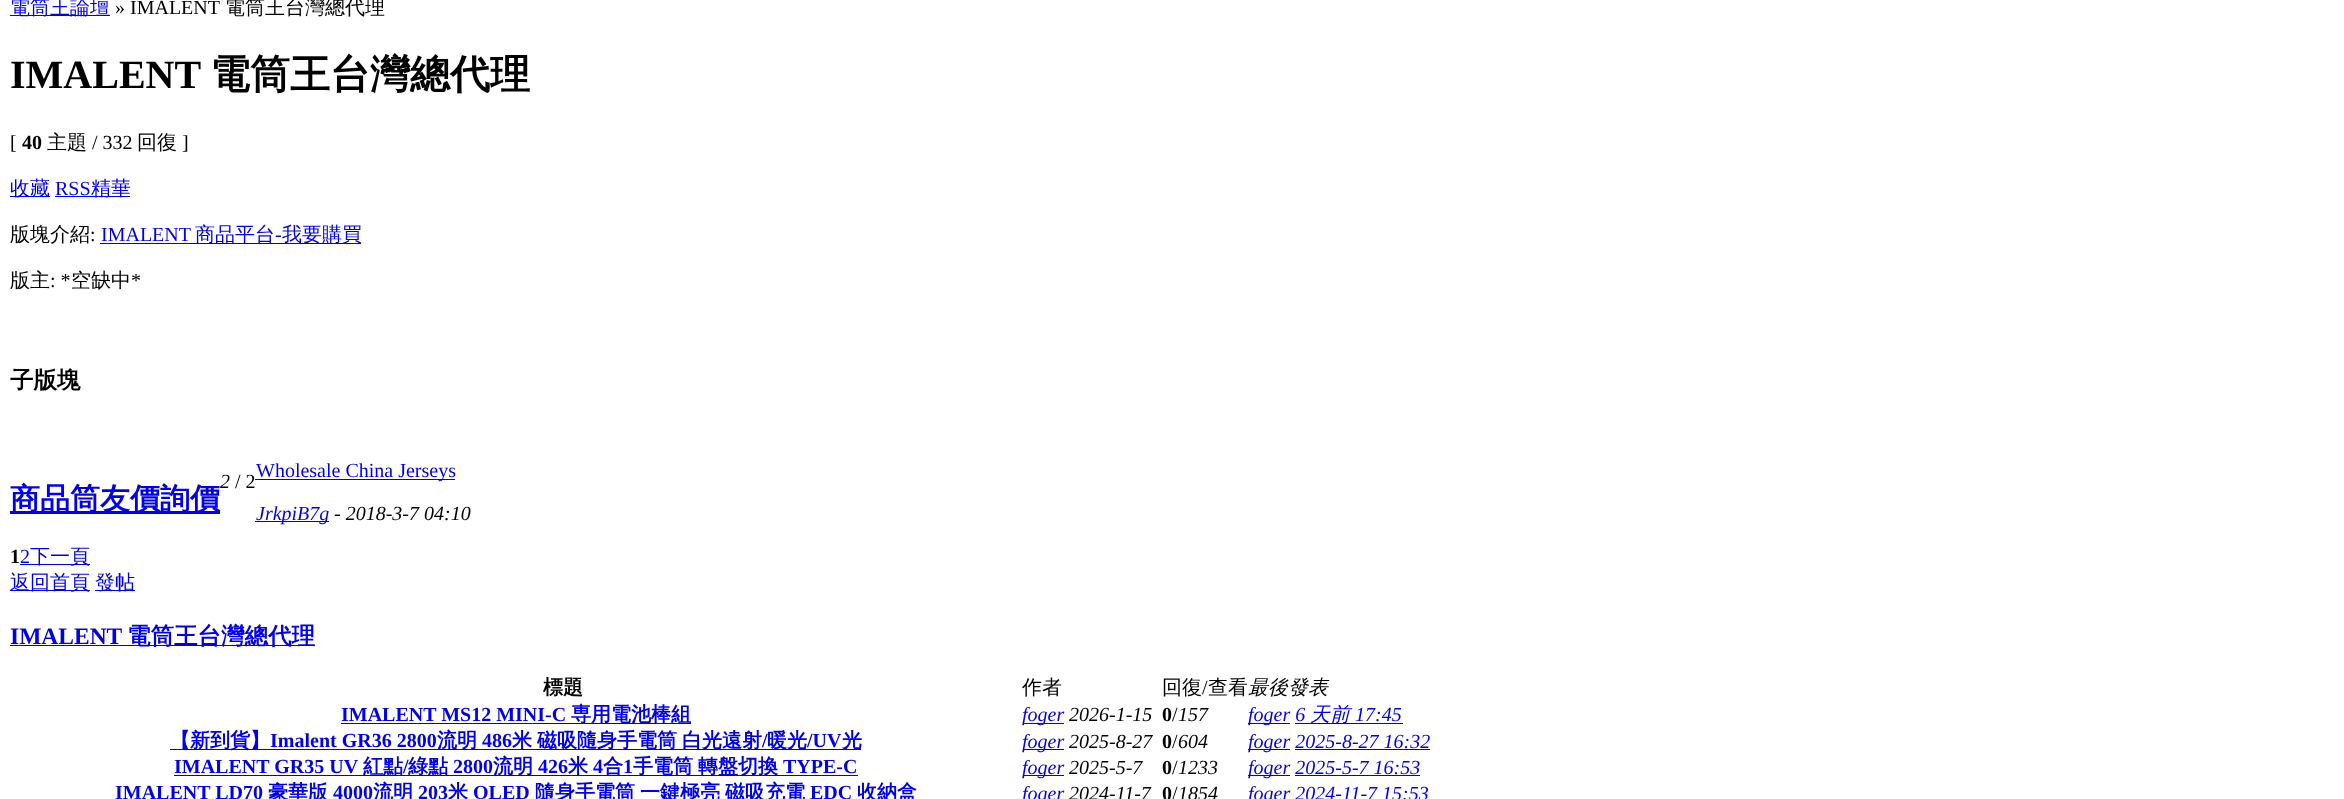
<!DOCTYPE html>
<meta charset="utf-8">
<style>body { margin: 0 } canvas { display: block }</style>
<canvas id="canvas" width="2344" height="799"></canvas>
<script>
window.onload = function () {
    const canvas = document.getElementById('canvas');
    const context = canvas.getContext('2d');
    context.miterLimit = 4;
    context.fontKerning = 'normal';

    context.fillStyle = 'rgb(255, 255, 255)';
    context.fillRect(0, 0, 2344, 799);
    context.fillStyle = 'rgb(0, 0, 238)';
    context.fillRect(10, 15, 100, 1);
    context.fillRect(10, 196, 40, 1);
    context.fillRect(55, 196, 75, 1);
    context.fillRect(100, 243, 261, 1);
    context.fillRect(255, 479, 200, 1);
    context.fillRect(255, 521, 74, 1);
    context.fillRect(10, 511, 210, 3);
    context.fillRect(20, 564, 70, 1);
    context.fillRect(10, 590, 80, 1);
    context.fillRect(95, 590, 40, 1);
    context.fillRect(10, 645, 304, 1);
    context.fillRect(341, 723, 350, 1);
    context.fillRect(1023, 723, 41, 1);
    context.fillRect(1248, 723, 42, 1);
    context.fillRect(1295, 723, 108, 1);
    context.fillRect(170, 749, 691, 1);
    context.fillRect(1023, 749, 41, 1);
    context.fillRect(1248, 749, 42, 1);
    context.fillRect(1295, 749, 135, 1);
    context.fillRect(174, 775, 684, 1);
    context.fillRect(1023, 775, 41, 1);
    context.fillRect(1248, 775, 42, 1);
    context.fillRect(1295, 775, 125, 1);
    context.font = '500 20px WenQuanYi Zen Hei';
    context.fillText('電筒王論壇', 10, 14);
    context.font = '20px Liberation Serif';
    context.fillStyle = 'rgb(0, 0, 0)';
    context.fillText('» IMALENT', 115, 14);
    context.font = '500 20px WenQuanYi Zen Hei';
    context.fillText('電筒王台灣總代理', 225, 14);
    context.font = 'bold 40px Liberation Serif';
    context.fillText('IMALENT', 10, 88);
    context.font = 'bold 40px WenQuanYi Zen Hei';
    context.fillText('電筒王台灣總代理', 210, 88);
    context.font = '20px Liberation Serif';
    context.fillText('[', 10, 149);
    context.font = 'bold 20px Liberation Serif';
    context.fillText('40', 22, 149);
    context.font = '500 20px WenQuanYi Zen Hei';
    context.fillText('主題', 47, 149);
    context.font = '20px Liberation Serif';
    context.fillText('/ 332', 92, 149);
    context.font = '500 20px WenQuanYi Zen Hei';
    context.fillText('回復', 137, 149);
    context.font = '20px Liberation Serif';
    context.fillText(']', 182, 149);
    context.font = '500 20px WenQuanYi Zen Hei';
    context.fillStyle = 'rgb(0, 0, 238)';
    context.fillText('收藏', 10, 195);
    context.font = '20px Liberation Serif';
    context.fillText('RSS', 55, 195);
    context.font = '500 20px WenQuanYi Zen Hei';
    context.fillText('精華', 91, 195);
    context.fillStyle = 'rgb(0, 0, 0)';
    context.fillText('版塊介紹', 10, 241);
    context.font = '20px Liberation Serif';
    context.fillText(':', 90, 241);
    context.fillStyle = 'rgb(0, 0, 238)';
    context.fillText('IMALENT', 101, 241);
    context.font = '500 20px WenQuanYi Zen Hei';
    context.fillText('商品平台', 195, 241);
    context.font = '20px Liberation Serif';
    context.fillText('-', 275, 241);
    context.font = '500 20px WenQuanYi Zen Hei';
    context.fillText('我要購買', 282, 241);
    context.fillStyle = 'rgb(0, 0, 0)';
    context.fillText('版主', 10, 287);
    context.font = '20px Liberation Serif';
    context.fillText(': *', 50, 287);
    context.font = '500 20px WenQuanYi Zen Hei';
    context.fillText('空缺中', 71, 287);
    context.font = '20px Liberation Serif';
    context.fillText('*', 131, 287);
    context.font = 'bold 23.5px WenQuanYi Zen Hei';
    context.fillText('子版塊', 10, 388);
    context.font = 'italic 20px Liberation Serif';
    context.fillText('2', 220, 488);
    context.font = '20px Liberation Serif';
    context.fillText('/ 2', 235, 488);
    context.fillStyle = 'rgb(0, 0, 238)';
    context.fillText('Wholesale China Jerseys', 256, 477);
    context.font = 'italic 20px Liberation Serif';
    context.fillText('JrkpiB7g', 256, 520);
    context.fillStyle = 'rgb(0, 0, 0)';
    context.fillText('- 2018-3-7 04:10', 334, 520);
    context.font = 'bold 30px WenQuanYi Zen Hei';
    context.fillStyle = 'rgb(0, 0, 238)';
    context.fillText('商品筒友價詢價', 10, 509);
    context.font = 'bold 20px Liberation Serif';
    context.fillStyle = 'rgb(0, 0, 0)';
    context.fillText('1', 10, 563);
    context.font = '20px Liberation Serif';
    context.fillStyle = 'rgb(0, 0, 238)';
    context.fillText('2', 20, 563);
    context.font = '500 20px WenQuanYi Zen Hei';
    context.fillText('下一頁', 30, 563);
    context.fillText('返回首頁', 10, 589);
    context.fillText('發帖', 95, 589);
    context.font = 'bold 23.5px Liberation Serif';
    context.fillText('IMALENT', 10, 644);
    context.font = 'bold 23.5px WenQuanYi Zen Hei';
    context.fillText('電筒王台灣總代理', 127, 644);
    context.font = 'bold 20px WenQuanYi Zen Hei';
    context.fillStyle = 'rgb(0, 0, 0)';
    context.fillText('標題', 543, 694);
    context.font = '500 20px WenQuanYi Zen Hei';
    context.fillText('作者', 1022, 694);
    context.fillText('回復', 1162, 694);
    context.font = '20px Liberation Serif';
    context.fillText('/', 1202, 694);
    context.font = '500 20px WenQuanYi Zen Hei';
    context.fillText('查看', 1208, 694);
    context.font = 'italic 500 20px WenQuanYi Zen Hei';
    context.fillText('最後發表', 1248, 694);
    context.font = 'bold 20px Liberation Serif';
    context.fillStyle = 'rgb(0, 0, 238)';
    context.fillText('IMALENT MS12 MINI-C', 341, 721);
    context.font = 'bold 20px WenQuanYi Zen Hei';
    context.fillText('専用電池棒組', 571, 721);
    context.font = 'italic 20px Liberation Serif';
    context.fillText('foger', 1022, 721);
    context.fillStyle = 'rgb(0, 0, 0)';
    context.fillText('2026-1-15', 1069, 721);
    context.font = 'bold 20px Liberation Serif';
    context.fillText('0', 1162, 721);
    context.font = '20px Liberation Serif';
    context.fillText('/', 1172, 721);
    context.font = 'italic 20px Liberation Serif';
    context.fillText('157', 1178, 721);
    context.fillStyle = 'rgb(0, 0, 238)';
    context.fillText('foger 6', 1248, 721);
    context.font = 'italic 500 20px WenQuanYi Zen Hei';
    context.fillText('天前', 1310, 721);
    context.font = 'italic 20px Liberation Serif';
    context.fillText('17:45', 1355, 721);
    context.font = 'bold 20px WenQuanYi Zen Hei';
    context.fillText('【新到貨】', 170, 747);
    context.font = 'bold 20px Liberation Serif';
    context.fillText('Imalent GR36 2800', 270, 747);
    context.font = 'bold 20px WenQuanYi Zen Hei';
    context.fillText('流明', 437, 747);
    context.font = 'bold 20px Liberation Serif';
    context.fillText('486', 482, 747);
    context.font = 'bold 20px WenQuanYi Zen Hei';
    context.fillText('米', 512, 747);
    context.fillText('磁吸隨身手電筒', 537, 747);
    context.fillText('白光遠射', 682, 747);
    context.font = 'bold 20px Liberation Serif';
    context.fillText('/', 762, 747);
    context.font = 'bold 20px WenQuanYi Zen Hei';
    context.fillText('暖光', 767, 747);
    context.font = 'bold 20px Liberation Serif';
    context.fillText('/UV', 807, 747);
    context.font = 'bold 20px WenQuanYi Zen Hei';
    context.fillText('光', 842, 747);
    context.font = 'italic 20px Liberation Serif';
    context.fillText('foger', 1022, 748);
    context.fillStyle = 'rgb(0, 0, 0)';
    context.fillText('2025-8-27', 1069, 748);
    context.font = 'bold 20px Liberation Serif';
    context.fillText('0', 1162, 748);
    context.font = '20px Liberation Serif';
    context.fillText('/', 1172, 748);
    context.font = 'italic 20px Liberation Serif';
    context.fillText('604', 1178, 748);
    context.fillStyle = 'rgb(0, 0, 238)';
    context.fillText('foger 2025-8-27 16:32', 1248, 748);
    context.font = 'bold 20px Liberation Serif';
    context.fillText('IMALENT GR35 UV', 174, 773);
    context.font = 'bold 20px WenQuanYi Zen Hei';
    context.fillText('紅點', 363, 773);
    context.font = 'bold 20px Liberation Serif';
    context.fillText('/', 403, 773);
    context.font = 'bold 20px WenQuanYi Zen Hei';
    context.fillText('綠點', 408, 773);
    context.font = 'bold 20px Liberation Serif';
    context.fillText('2800', 453, 773);
    context.font = 'bold 20px WenQuanYi Zen Hei';
    context.fillText('流明', 493, 773);
    context.font = 'bold 20px Liberation Serif';
    context.fillText('426', 538, 773);
    context.font = 'bold 20px WenQuanYi Zen Hei';
    context.fillText('米', 568, 773);
    context.font = 'bold 20px Liberation Serif';
    context.fillText('4', 593, 773);
    context.font = 'bold 20px WenQuanYi Zen Hei';
    context.fillText('合', 603, 773);
    context.font = 'bold 20px Liberation Serif';
    context.fillText('1', 623, 773);
    context.font = 'bold 20px WenQuanYi Zen Hei';
    context.fillText('手電筒', 633, 773);
    context.fillText('轉盤切換', 698, 773);
    context.font = 'bold 20px Liberation Serif';
    context.fillText('TYPE-C', 783, 773);
    context.font = 'italic 20px Liberation Serif';
    context.fillText('foger', 1022, 774);
    context.fillStyle = 'rgb(0, 0, 0)';
    context.fillText('2025-5-7', 1069, 774);
    context.font = 'bold 20px Liberation Serif';
    context.fillText('0', 1162, 774);
    context.font = '20px Liberation Serif';
    context.fillText('/', 1172, 774);
    context.font = 'italic 20px Liberation Serif';
    context.fillText('1233', 1178, 774);
    context.fillStyle = 'rgb(0, 0, 238)';
    context.fillText('foger 2025-5-7 16:53', 1248, 774);
    context.font = 'bold 20px Liberation Serif';
    context.fillText('IMALENT LD70', 115, 799);
    context.font = 'bold 20px WenQuanYi Zen Hei';
    context.fillText('豪華版', 268, 799);
    context.font = 'bold 20px Liberation Serif';
    context.fillText('4000', 333, 799);
    context.font = 'bold 20px WenQuanYi Zen Hei';
    context.fillText('流明', 373, 799);
    context.font = 'bold 20px Liberation Serif';
    context.fillText('203', 418, 799);
    context.font = 'bold 20px WenQuanYi Zen Hei';
    context.fillText('米', 448, 799);
    context.font = 'bold 20px Liberation Serif';
    context.fillText('OLED', 473, 799);
    context.font = 'bold 20px WenQuanYi Zen Hei';
    context.fillText('隨身手電筒', 535, 799);
    context.fillText('一鍵極亮', 640, 799);
    context.fillText('磁吸充電', 725, 799);
    context.font = 'bold 20px Liberation Serif';
    context.fillText('EDC', 810, 799);
    context.font = 'bold 20px WenQuanYi Zen Hei';
    context.fillText('收納盒', 857, 799);
    context.font = 'italic 20px Liberation Serif';
    context.fillText('foger', 1022, 800);
    context.fillStyle = 'rgb(0, 0, 0)';
    context.fillText('2024-11-7', 1069, 800);
    context.font = 'bold 20px Liberation Serif';
    context.fillText('0', 1162, 800);
    context.font = '20px Liberation Serif';
    context.fillText('/', 1172, 800);
    context.font = 'italic 20px Liberation Serif';
    context.fillText('1854', 1178, 800);
    context.fillStyle = 'rgb(0, 0, 238)';
    context.fillText('foger 2024-11-7 15:53', 1248, 800);
};
</script>
